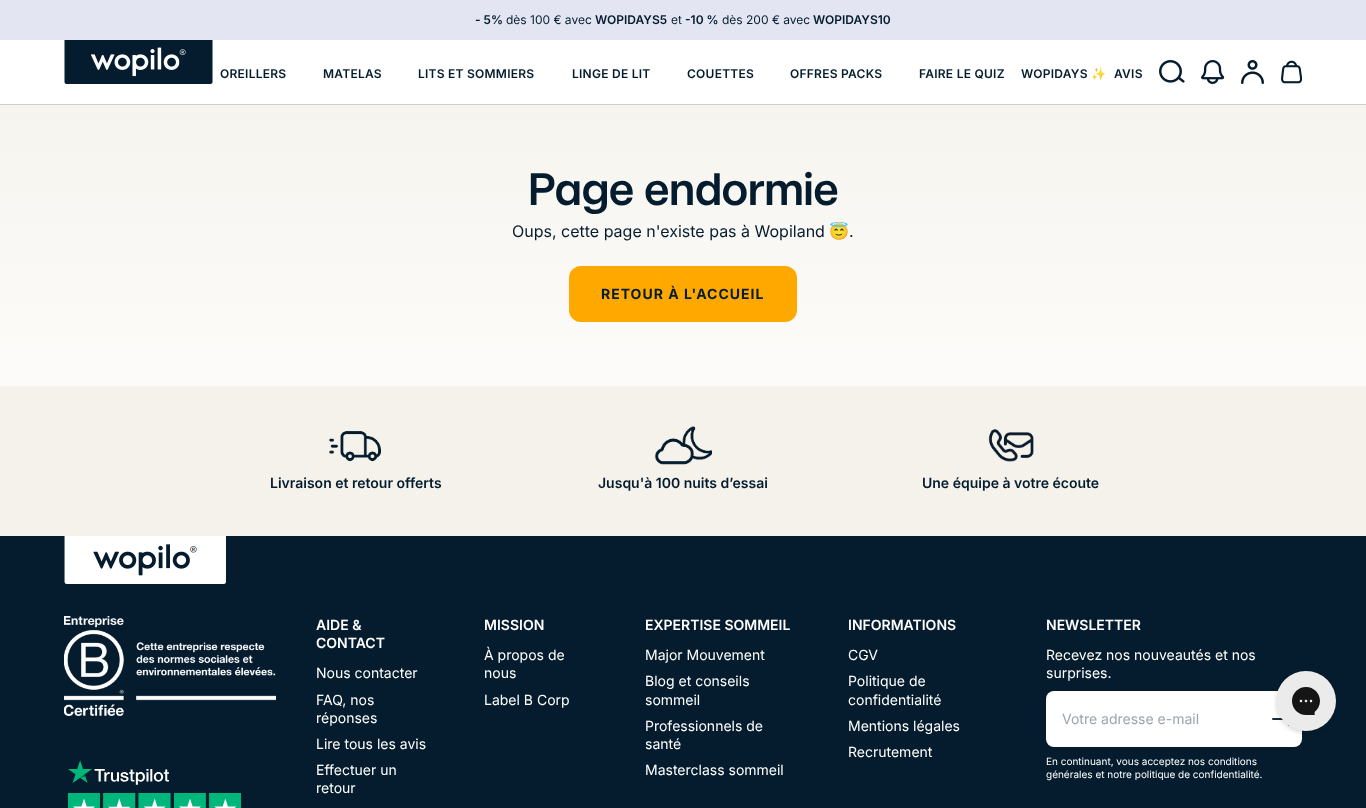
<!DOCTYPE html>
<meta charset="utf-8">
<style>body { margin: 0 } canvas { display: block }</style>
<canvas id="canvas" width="1366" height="808"></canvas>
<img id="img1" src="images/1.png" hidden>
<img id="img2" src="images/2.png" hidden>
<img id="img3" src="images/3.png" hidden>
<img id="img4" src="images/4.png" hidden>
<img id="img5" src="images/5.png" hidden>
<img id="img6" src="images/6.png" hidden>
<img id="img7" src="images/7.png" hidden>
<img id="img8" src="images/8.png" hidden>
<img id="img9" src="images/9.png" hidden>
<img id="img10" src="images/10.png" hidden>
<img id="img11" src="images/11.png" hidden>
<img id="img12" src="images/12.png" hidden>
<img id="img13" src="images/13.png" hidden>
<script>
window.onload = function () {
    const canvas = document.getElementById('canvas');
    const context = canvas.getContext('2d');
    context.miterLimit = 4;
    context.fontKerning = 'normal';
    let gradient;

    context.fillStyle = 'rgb(255, 255, 255)';
    context.fillRect(0, 0, 1366, 808);
    gradient = context.createLinearGradient(683, 0, 683, 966);
    gradient.addColorStop(0, 'rgb(245, 242, 235)');
    gradient.addColorStop(0.56, 'rgb(255, 255, 255)');
    context.fillStyle = gradient;
    context.fillRect(0, 105, 1366, 281);
    context.fillStyle = 'rgb(227, 230, 242)';
    context.fillRect(0, 0, 1366, 40);
    context.fillStyle = 'rgb(206, 206, 206)';
    context.fillRect(0, 104, 1366, 1);
    context.drawImage(document.getElementById('img1'), 64, 40, 149, 44);
    context.drawImage(document.getElementById('img2'), 1159, 60, 26, 23);
    context.drawImage(document.getElementById('img3'), 1201, 60, 24, 24);
    context.drawImage(document.getElementById('img4'), 1241, 60, 23, 24);
    context.drawImage(document.getElementById('img5'), 1281, 60, 21, 24);
    context.fillStyle = 'rgb(255, 168, 0)';
    context.beginPath();
    context.roundRect(569, 266, 228, 56, 12);
    context.fill();
    context.fillStyle = 'rgb(245, 242, 235)';
    context.fillRect(0, 386, 1366, 150);
    context.drawImage(document.getElementById('img6'), 329, 431, 52, 31);
    context.drawImage(document.getElementById('img7'), 654, 426, 58, 39);
    context.drawImage(document.getElementById('img8'), 988, 429, 46, 33);
    context.fillStyle = 'rgb(4, 28, 45)';
    context.fillRect(0, 536, 1366, 272);
    context.drawImage(document.getElementById('img9'), 64, 536, 162, 48);
    context.drawImage(document.getElementById('img10'), 64, 616, 212, 100);
    context.drawImage(document.getElementById('img11'), 68, 760, 173, 48);
    context.fillStyle = 'rgb(255, 255, 255)';
    context.beginPath();
    context.roundRect(1046, 691, 256, 56, 8);
    context.fill();
    context.drawImage(document.getElementById('img12'), 1272, 718, 18, 8);
    context.drawImage(document.getElementById('img13'), 1274, 671, 62, 64);
    context.font = '600 12px Inter';
    context.fillStyle = 'rgb(4, 28, 45)';
    context.fillText('- 5%', 475, 24);
    context.font = '12px Inter';
    context.fillText('dès 100 € avec', 506, 24);
    context.font = '600 12px Inter';
    context.fillText('WOPIDAYS5', 595, 24);
    context.font = '12px Inter';
    context.fillText('et', 671, 24);
    context.font = '600 12px Inter';
    context.fillText('-10 %', 685, 24);
    context.font = '12px Inter';
    context.fillText('dès 200 € avec', 722, 24);
    context.font = '600 12px Inter';
    context.fillText('WOPIDAYS10', 813, 24);
    context.letterSpacing = '0.25px';
    context.fillText('OREILLERS', 220, 78);
    context.fillText('MATELAS', 323, 78);
    context.fillText('LITS ET SOMMIERS', 418, 78);
    context.fillText('LINGE DE LIT', 572, 78);
    context.fillText('COUETTES', 687, 78);
    context.fillText('OFFRES PACKS', 790, 78);
    context.fillText('FAIRE LE QUIZ', 919, 78);
    context.fillText('WOPIDAYS', 1021, 78);
    context.font = 'bold 12px Noto Color Emoji';
    context.fillText('✨', 1091, 78);
    context.font = '600 12px Inter';
    context.fillText('AVIS', 1114, 78);
    context.letterSpacing = '0px';
    context.font = '500 45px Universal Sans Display';
    context.fillText('Page endormie', 528, 205);
    context.font = '16px Inter';
    context.fillText('Oups, cette page n\'existe pas à Wopiland', 512, 237);
    context.font = '16px Noto Color Emoji';
    context.fillText('😇', 829, 237);
    context.font = '16px Inter';
    context.fillText('.', 849, 237);
    context.letterSpacing = '1px';
    context.font = 'bold 14px Inter';
    context.fillText('RETOUR À L\'ACCUEIL', 601, 299);
    context.letterSpacing = '0px';
    context.font = '600 14px Inter';
    context.fillText('Livraison et retour offerts', 270, 488);
    context.fillText('Jusqu\'à 100 nuits d’essai', 598, 488);
    context.fillText('Une équipe à votre écoute', 922, 488);
    context.fillStyle = 'rgb(255, 255, 255)';
    context.fillText('AIDE &', 316, 630);
    context.fillText('CONTACT', 316, 648);
    context.font = '14px Inter';
    context.fillText('Nous contacter', 316, 678);
    context.fillText('FAQ, nos', 316, 705);
    context.fillText('réponses', 316, 723);
    context.fillText('Lire tous les avis', 316, 749);
    context.fillText('Effectuer un', 316, 775);
    context.fillText('retour', 316, 793);
    context.font = '600 14px Inter';
    context.fillText('MISSION', 484, 630);
    context.font = '14px Inter';
    context.fillText('À propos de', 484, 660);
    context.fillText('nous', 484, 678);
    context.fillText('Label B Corp', 484, 705);
    context.font = '600 14px Inter';
    context.fillText('EXPERTISE SOMMEIL', 645, 630);
    context.font = '14px Inter';
    context.fillText('Major Mouvement', 645, 660);
    context.fillText('Blog et conseils', 645, 686);
    context.fillText('sommeil', 645, 705);
    context.fillText('Professionnels de', 645, 731);
    context.fillText('santé', 645, 749);
    context.fillText('Masterclass sommeil', 645, 775);
    context.font = '600 14px Inter';
    context.fillText('INFORMATIONS', 848, 630);
    context.font = '14px Inter';
    context.fillText('CGV', 848, 660);
    context.fillText('Politique de', 848, 686);
    context.fillText('confidentialité', 848, 705);
    context.fillText('Mentions légales', 848, 731);
    context.fillText('Recrutement', 848, 757);
    context.font = '600 14px Inter';
    context.fillText('NEWSLETTER', 1046, 630);
    context.font = '14px Inter';
    context.fillText('Recevez nos nouveautés et nos', 1046, 660);
    context.fillText('surprises.', 1046, 678);
    context.fillStyle = 'rgb(156, 163, 175)';
    context.fillText('Votre adresse e-mail', 1062, 724);
    context.font = '10px Inter';
    context.fillStyle = 'rgb(255, 255, 255)';
    context.fillText('En continuant, vous acceptez nos conditions', 1046, 765);
    context.fillText('générales et notre politique de confidentialité.', 1046, 778);
};
</script>
